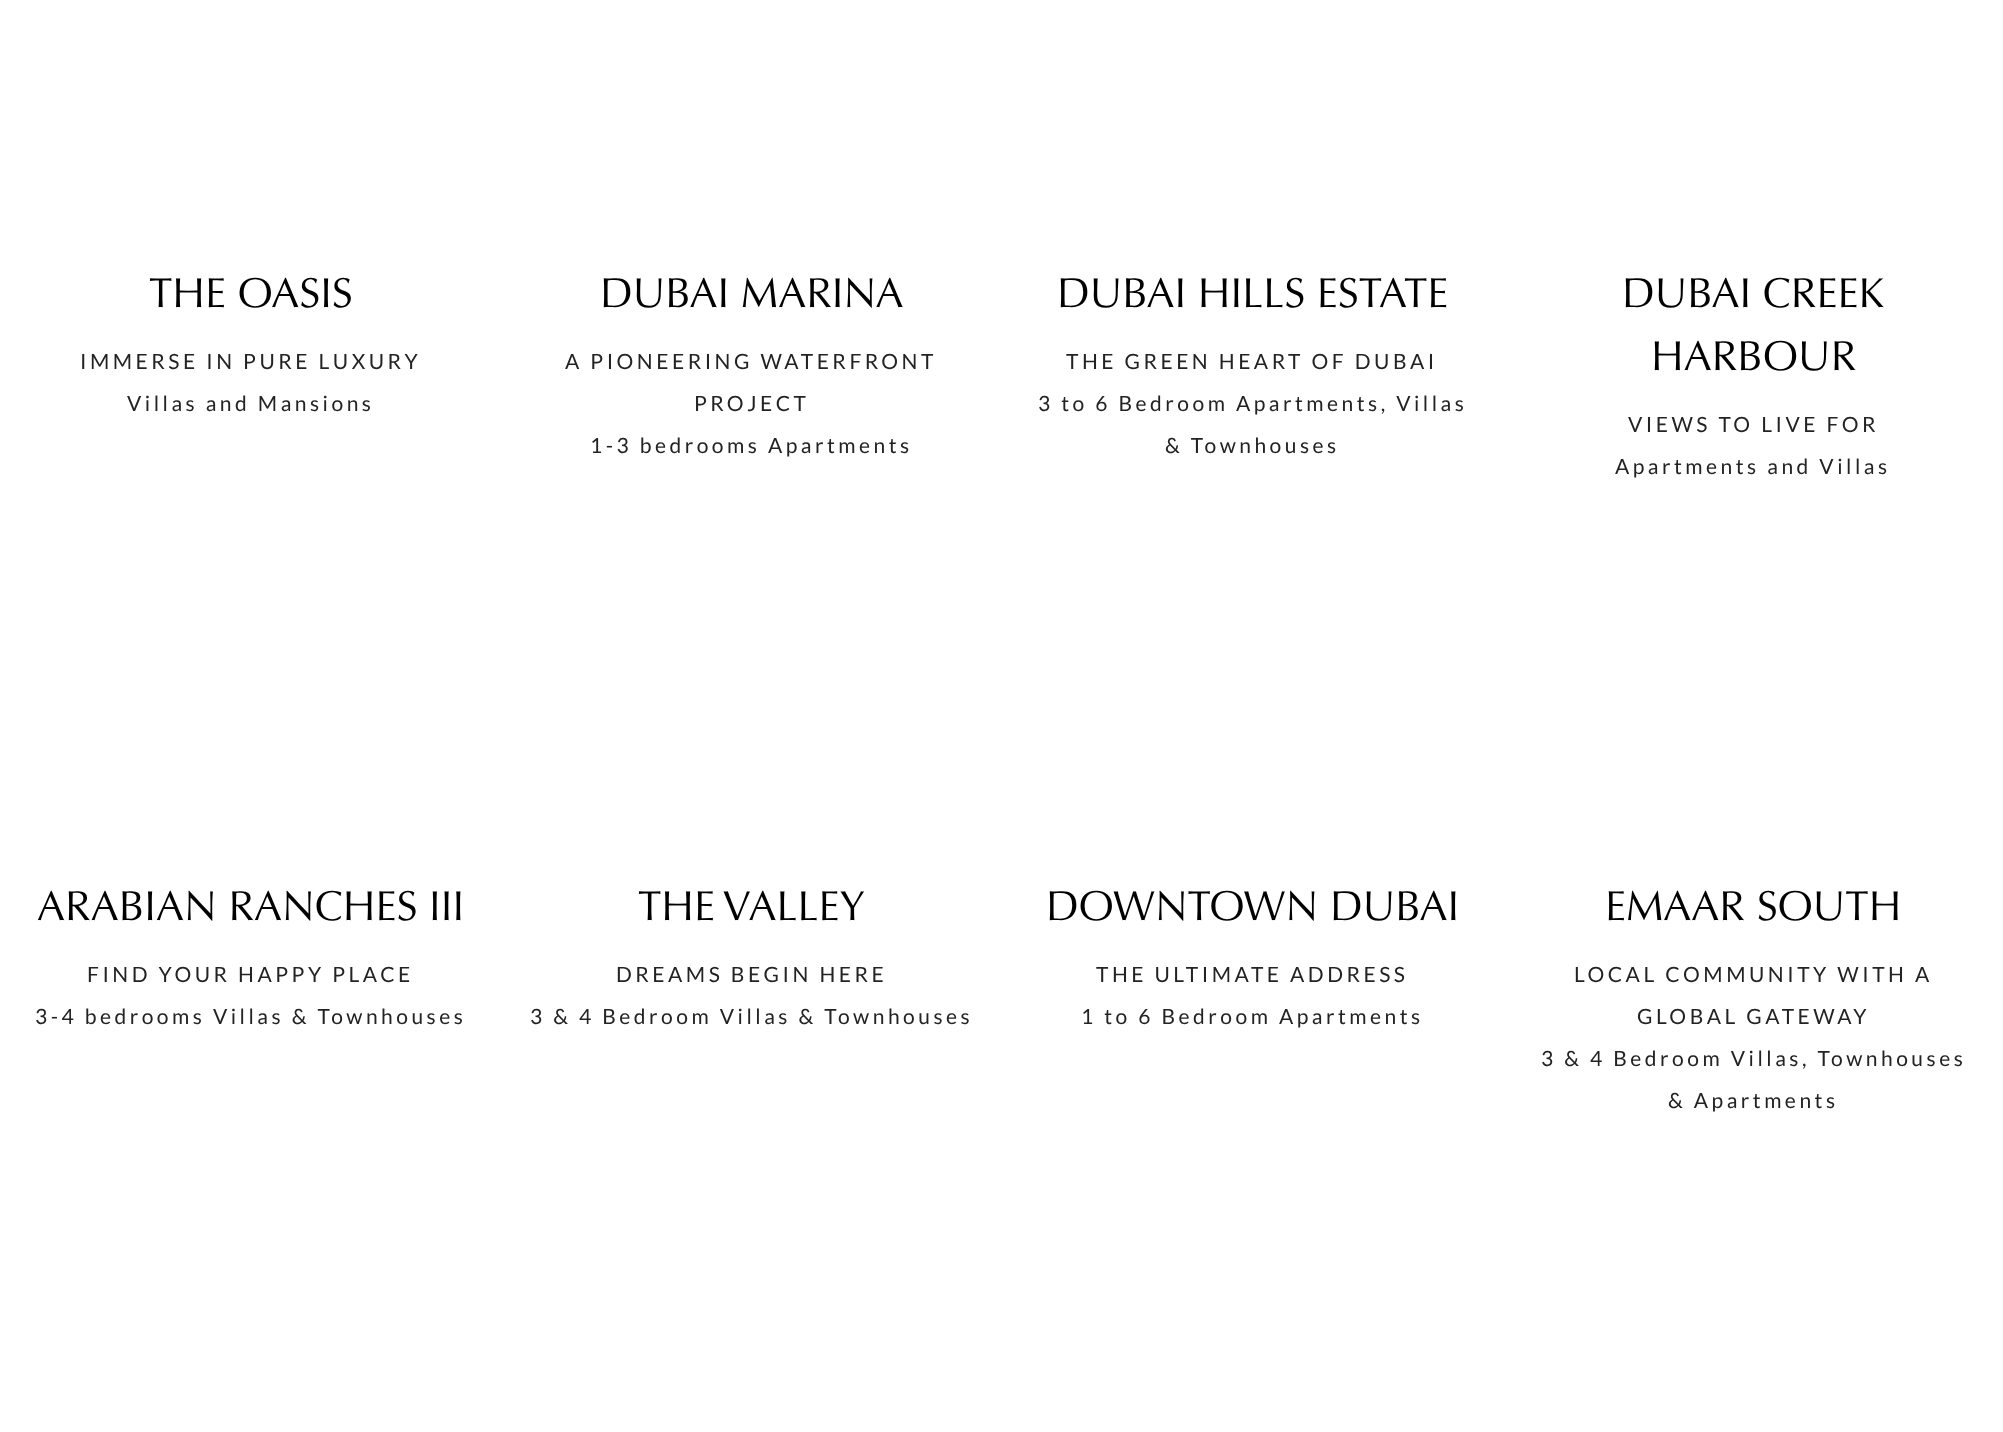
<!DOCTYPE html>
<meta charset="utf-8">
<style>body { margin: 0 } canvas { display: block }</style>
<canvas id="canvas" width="2003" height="1432"></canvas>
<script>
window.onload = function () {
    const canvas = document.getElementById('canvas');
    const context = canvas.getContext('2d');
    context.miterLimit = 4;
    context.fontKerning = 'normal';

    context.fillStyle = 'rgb(255, 255, 255)';
    context.fillRect(0, 0, 2003, 1432);
    context.font = '42px Optima';
    context.fillStyle = 'rgb(0, 0, 0)';
    context.fillText('THE OASIS', 149, 307);
    context.letterSpacing = '3.5px';
    context.font = '21px Lato';
    context.fillStyle = 'rgb(35, 35, 35)';
    context.fillText('IMMERSE IN PURE LUXURY', 80, 369);
    context.fillText('Villas and Mansions', 127, 411);
    context.letterSpacing = '0px';
    context.font = '42px Optima';
    context.fillStyle = 'rgb(0, 0, 0)';
    context.fillText('DUBAI MARINA', 600, 307);
    context.letterSpacing = '3.5px';
    context.font = '21px Lato';
    context.fillStyle = 'rgb(35, 35, 35)';
    context.fillText('A PIONEERING WATERFRONT', 565, 369);
    context.fillText('PROJECT', 694, 411);
    context.fillText('1-3 bedrooms Apartments', 590, 453);
    context.letterSpacing = '0px';
    context.font = '42px Optima';
    context.fillStyle = 'rgb(0, 0, 0)';
    context.fillText('DUBAI HILLS ESTATE', 1057, 307);
    context.letterSpacing = '3.5px';
    context.font = '21px Lato';
    context.fillStyle = 'rgb(35, 35, 35)';
    context.fillText('THE GREEN HEART OF DUBAI', 1066, 369);
    context.fillText('3 to 6 Bedroom Apartments, Villas', 1038, 411);
    context.fillText('& Townhouses', 1165, 453);
    context.letterSpacing = '0px';
    context.font = '42px Optima';
    context.fillStyle = 'rgb(0, 0, 0)';
    context.fillText('DUBAI CREEK', 1622, 307);
    context.fillText('HARBOUR', 1651, 370);
    context.letterSpacing = '3.5px';
    context.font = '21px Lato';
    context.fillStyle = 'rgb(35, 35, 35)';
    context.fillText('VIEWS TO LIVE FOR', 1628, 432);
    context.fillText('Apartments and Villas', 1615, 474);
    context.letterSpacing = '0px';
    context.font = '42px Optima';
    context.fillStyle = 'rgb(0, 0, 0)';
    context.fillText('ARABIAN RANCHES III', 37, 920);
    context.letterSpacing = '3.5px';
    context.font = '21px Lato';
    context.fillStyle = 'rgb(35, 35, 35)';
    context.fillText('FIND YOUR HAPPY PLACE', 87, 982);
    context.fillText('3-4 bedrooms Villas & Townhouses', 35, 1024);
    context.letterSpacing = '0px';
    context.font = '42px Optima';
    context.fillStyle = 'rgb(0, 0, 0)';
    context.fillText('THE VALLEY', 638, 920);
    context.letterSpacing = '3.5px';
    context.font = '21px Lato';
    context.fillStyle = 'rgb(35, 35, 35)';
    context.fillText('DREAMS BEGIN HERE', 616, 982);
    context.fillText('3 & 4 Bedroom Villas & Townhouses', 530, 1024);
    context.letterSpacing = '0px';
    context.font = '42px Optima';
    context.fillStyle = 'rgb(0, 0, 0)';
    context.fillText('DOWNTOWN DUBAI', 1046, 920);
    context.letterSpacing = '3.5px';
    context.font = '21px Lato';
    context.fillStyle = 'rgb(35, 35, 35)';
    context.fillText('THE ULTIMATE ADDRESS', 1096, 982);
    context.fillText('1 to 6 Bedroom Apartments', 1081, 1024);
    context.letterSpacing = '0px';
    context.font = '42px Optima';
    context.fillStyle = 'rgb(0, 0, 0)';
    context.fillText('EMAAR SOUTH', 1605, 920);
    context.letterSpacing = '3.5px';
    context.font = '21px Lato';
    context.fillStyle = 'rgb(35, 35, 35)';
    context.fillText('LOCAL COMMUNITY WITH A', 1574, 982);
    context.fillText('GLOBAL GATEWAY', 1637, 1024);
    context.fillText('3 & 4 Bedroom Villas, Townhouses', 1541, 1066);
    context.fillText('& Apartments', 1668, 1108);
};
</script>
